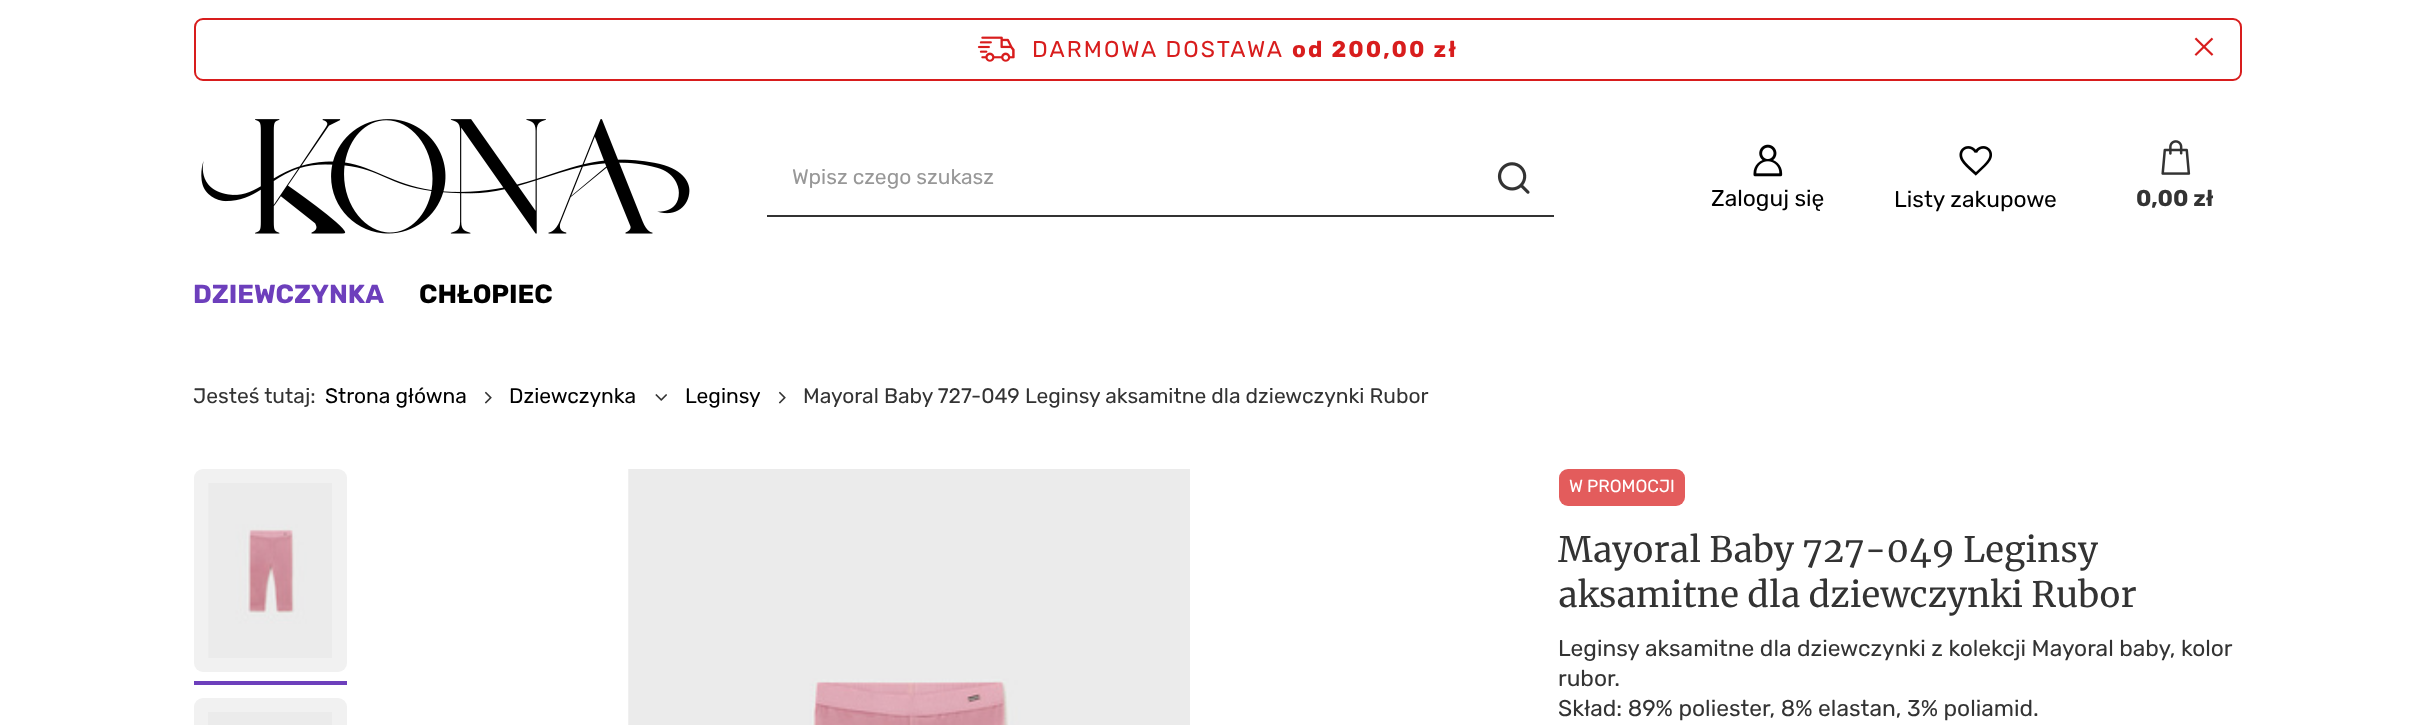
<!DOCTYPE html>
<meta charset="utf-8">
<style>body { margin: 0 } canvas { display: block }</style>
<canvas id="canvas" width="2434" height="725"></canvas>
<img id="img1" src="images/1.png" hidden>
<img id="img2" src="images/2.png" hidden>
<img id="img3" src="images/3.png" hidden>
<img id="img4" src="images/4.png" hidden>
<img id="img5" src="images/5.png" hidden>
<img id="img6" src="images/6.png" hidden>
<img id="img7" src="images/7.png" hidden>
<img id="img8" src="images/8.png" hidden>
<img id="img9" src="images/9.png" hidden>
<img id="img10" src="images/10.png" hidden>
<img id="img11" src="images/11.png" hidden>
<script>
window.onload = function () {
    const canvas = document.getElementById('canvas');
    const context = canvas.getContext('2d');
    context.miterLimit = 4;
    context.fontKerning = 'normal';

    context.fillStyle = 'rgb(255, 255, 255)';
    context.fillRect(0, 0, 2434, 725);
    context.beginPath();
    context.roundRect(195, 19, 2046, 61, 8);
    context.strokeStyle = 'rgb(216, 29, 29)';
    context.lineWidth = 2;
    context.stroke();
    context.drawImage(document.getElementById('img1'), 977, 36, 38, 26);
    context.drawImage(document.getElementById('img2'), 2194, 37, 20, 19);
    context.drawImage(document.getElementById('img3'), 201, 119, 489, 115);
    context.fillStyle = 'rgb(51, 51, 51)';
    context.fillRect(767, 215, 787, 2);
    context.drawImage(document.getElementById('img4'), 1497, 162, 33, 32);
    context.drawImage(document.getElementById('img5'), 1753, 144, 30, 33);
    context.drawImage(document.getElementById('img6'), 1959, 146, 33, 30);
    context.drawImage(document.getElementById('img7'), 2161, 140, 30, 35);
    context.drawImage(document.getElementById('img8'), 484, 391, 8, 13);
    context.drawImage(document.getElementById('img9'), 655, 394, 12, 7);
    context.drawImage(document.getElementById('img8'), 778, 391, 8, 13);
    context.fillStyle = 'rgb(241, 241, 241)';
    context.beginPath();
    context.roundRect(194, 469, 153, 203, 9);
    context.fill();
    context.drawImage(document.getElementById('img10'), 208, 483, 124, 175);
    context.fillStyle = 'rgb(109, 63, 188)';
    context.fillRect(194, 681, 153, 4);
    context.fillStyle = 'rgb(241, 241, 241)';
    context.beginPath();
    context.roundRect(194, 698, 153, 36, 9);
    context.fill();
    context.fillStyle = 'rgb(235, 235, 235)';
    context.fillRect(208, 712, 124, 13);
    context.drawImage(document.getElementById('img11'), 628, 469, 562, 256);
    context.fillStyle = 'rgb(227, 92, 92)';
    context.beginPath();
    context.roundRect(1559, 469, 126, 37, 9);
    context.fill();
    context.letterSpacing = '2.1px';
    context.font = '22.75px Rubik';
    context.fillStyle = 'rgb(216, 29, 29)';
    context.fillText('DARMOWA DOSTAWA', 1032, 57);
    context.font = 'bold 22.75px Rubik';
    context.fillText('od 200,00 zł', 1292, 57);
    context.letterSpacing = '0px';
    context.font = '21px Rubik';
    context.fillStyle = 'rgb(152, 152, 152)';
    context.fillText('Wpisz czego szukasz', 792, 184);
    context.font = '22.75px Rubik';
    context.fillStyle = 'rgb(0, 0, 0)';
    context.fillText('Zaloguj się', 1711, 206);
    context.fillText('Listy zakupowe', 1894, 207);
    context.font = 'bold 22.75px Rubik';
    context.fillStyle = 'rgb(51, 51, 51)';
    context.fillText('0,00 zł', 2136, 206);
    context.font = 'bold 26.25px Rubik';
    context.fillStyle = 'rgb(109, 63, 188)';
    context.fillText('DZIEWCZYNKA', 193, 303);
    context.fillStyle = 'rgb(0, 0, 0)';
    context.fillText('CHŁOPIEC', 419, 303);
    context.font = '21px Rubik';
    context.fillStyle = 'rgb(51, 51, 51)';
    context.fillText('Jesteś tutaj:', 193, 403);
    context.fillStyle = 'rgb(0, 0, 0)';
    context.fillText('Strona główna', 325, 403);
    context.fillText('Dziewczynka', 509, 403);
    context.fillText('Leginsy', 685, 403);
    context.fillStyle = 'rgb(51, 51, 51)';
    context.fillText('Mayoral Baby 727-049 Leginsy aksamitne dla dziewczynki Rubor', 803, 403);
    context.font = '17.5px Rubik';
    context.fillStyle = 'rgb(255, 255, 255)';
    context.fillText('W PROMOCJI', 1569, 492);
    context.font = '35px Merriweather';
    context.fillStyle = 'rgb(51, 51, 51)';
    context.fillText('Mayoral Baby 727-049 Leginsy', 1558, 562);
    context.fillText('aksamitne dla dziewczynki Rubor', 1558, 607);
    context.font = '22.75px Rubik';
    context.fillText('Leginsy aksamitne dla dziewczynki z kolekcji Mayoral baby, kolor', 1558, 656);
    context.fillText('rubor.', 1558, 686);
    context.fillText('Skład: 89% poliester, 8% elastan, 3% poliamid.', 1558, 716);
};
</script>
